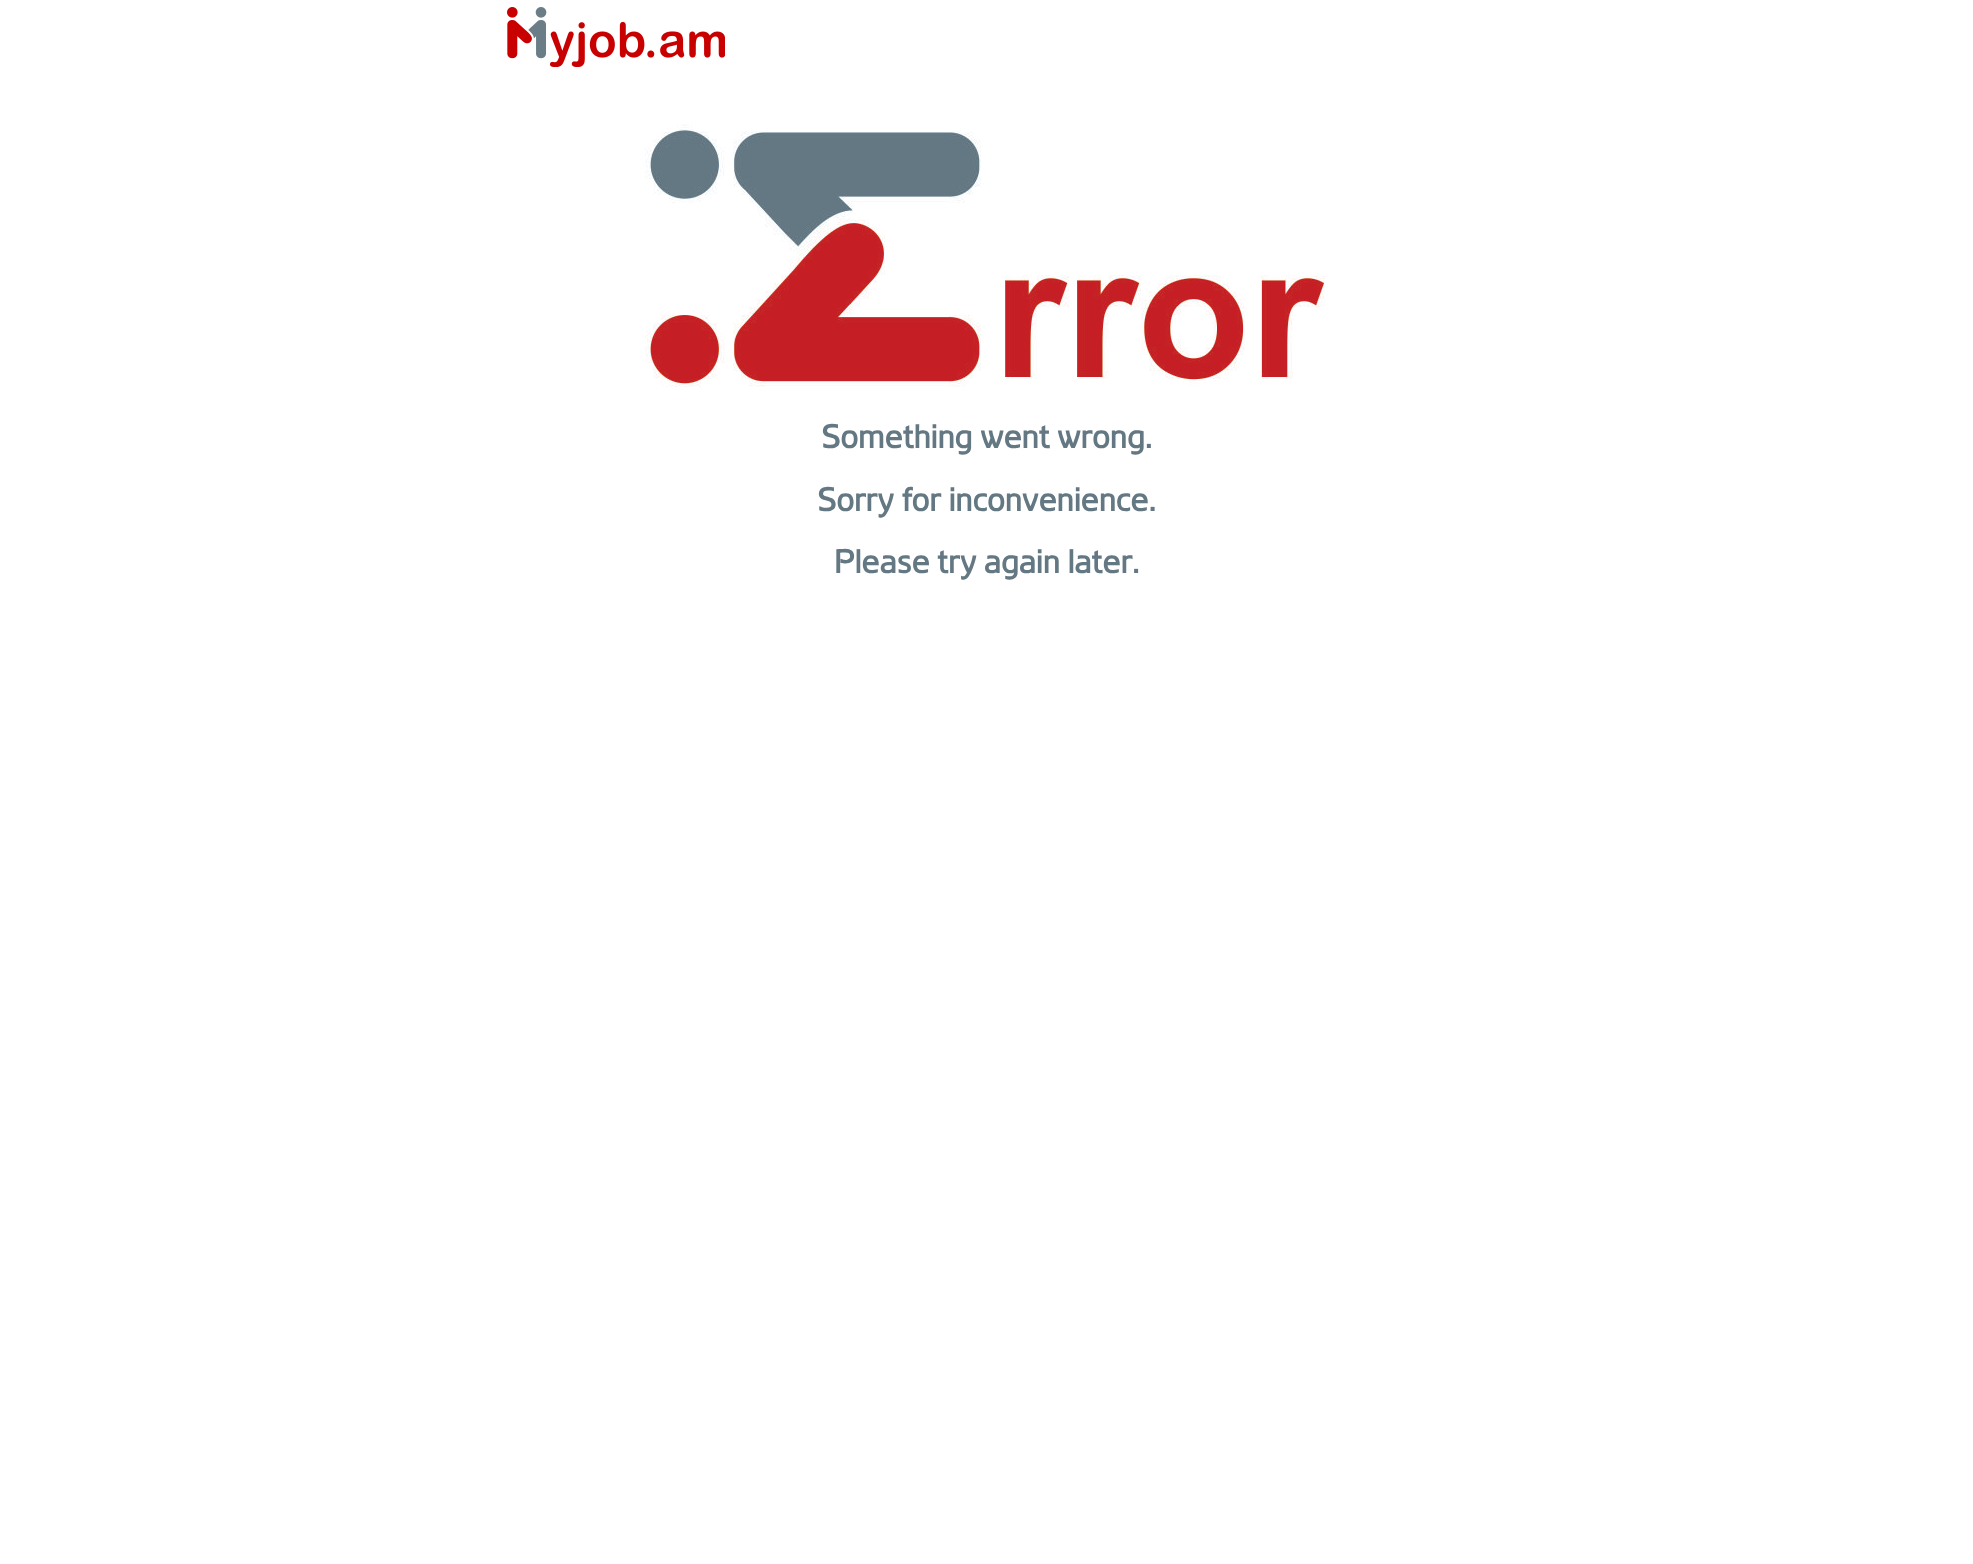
<!DOCTYPE html>
<meta charset="utf-8">
<style>body { margin: 0 } canvas { display: block }</style>
<canvas id="canvas" width="1973" height="1564"></canvas>
<img id="img1" src="images/1.png" hidden>
<img id="img2" src="images/2.png" hidden>
<script>
window.onload = function () {
    const canvas = document.getElementById('canvas');
    const context = canvas.getContext('2d');
    context.miterLimit = 4;
    context.fontKerning = 'normal';

    context.fillStyle = 'rgb(255, 255, 255)';
    context.fillRect(0, 0, 1973, 1564);
    context.drawImage(document.getElementById('img1'), 507, 7, 218, 60);
    context.drawImage(document.getElementById('img2'), 645, 124, 680, 263);
    context.font = 'bold 32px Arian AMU';
    context.fillStyle = 'rgb(100, 120, 131)';
    context.fillText('Something went wrong.', 821, 448);
    context.fillText('Sorry for inconvenience.', 817, 511);
    context.fillText('Please try again later.', 834, 573);
};
</script>
